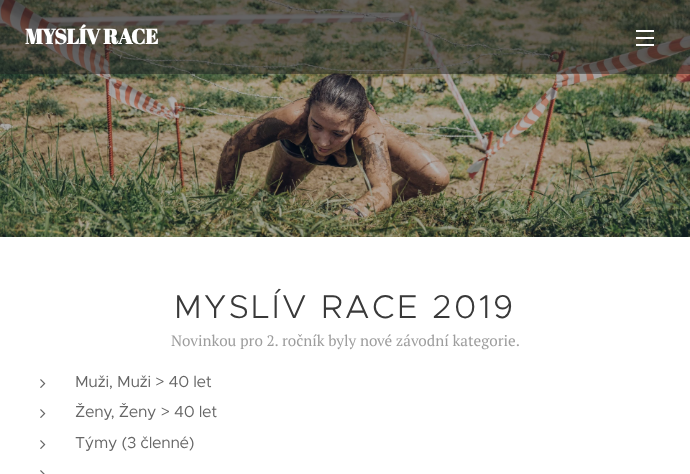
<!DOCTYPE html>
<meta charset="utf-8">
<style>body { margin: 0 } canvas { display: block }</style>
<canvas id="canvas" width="690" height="474"></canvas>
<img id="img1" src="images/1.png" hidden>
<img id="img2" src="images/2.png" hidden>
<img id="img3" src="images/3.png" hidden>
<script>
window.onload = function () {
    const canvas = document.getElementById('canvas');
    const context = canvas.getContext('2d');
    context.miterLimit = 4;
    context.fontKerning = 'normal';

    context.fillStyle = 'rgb(255, 255, 255)';
    context.fillRect(0, 0, 690, 474);
    context.drawImage(document.getElementById('img1'), 0, 0, 690, 237);
    context.fillStyle = 'rgba(34, 34, 34, 0.5)';
    context.fillRect(0, 0, 690, 74);
    context.fillStyle = 'rgb(255, 255, 255)';
    context.fillRect(636, 37, 18, 2);
    context.fillRect(636, 30, 18, 2);
    context.fillRect(636, 44, 18, 2);
    context.drawImage(document.getElementById('img2'), 40, 379, 6, 9);
    context.drawImage(document.getElementById('img2'), 40, 409, 6, 9);
    context.drawImage(document.getElementById('img2'), 40, 440, 6, 9);
    context.drawImage(document.getElementById('img3'), 40, 470, 5, 4);
    context.letterSpacing = '-0.3px';
    context.font = 'bold 21px Abril Fatface';
    context.fillText('MYSLÍV RACE', 25, 44);
    context.letterSpacing = '2.6px';
    context.font = '300 33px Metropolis';
    context.fillStyle = 'rgb(57, 57, 57)';
    context.fillText('MYSLÍV RACE 2019', 174, 318);
    context.letterSpacing = '0px';
    context.font = '15.2px PT Serif';
    context.fillStyle = 'rgb(157, 157, 157)';
    context.fillText('Novinkou pro 2. ročník byly nové závodní kategorie.', 171, 346);
    context.letterSpacing = '-0.3px';
    context.font = '16px Metropolis';
    context.fillStyle = 'rgb(102, 102, 102)';
    context.fillText('Muži, Muži > 40 let', 75, 387);
    context.fillText('Ženy, Ženy > 40 let', 75, 417);
    context.fillText('Týmy (3 členné)', 75, 448);
};
</script>
